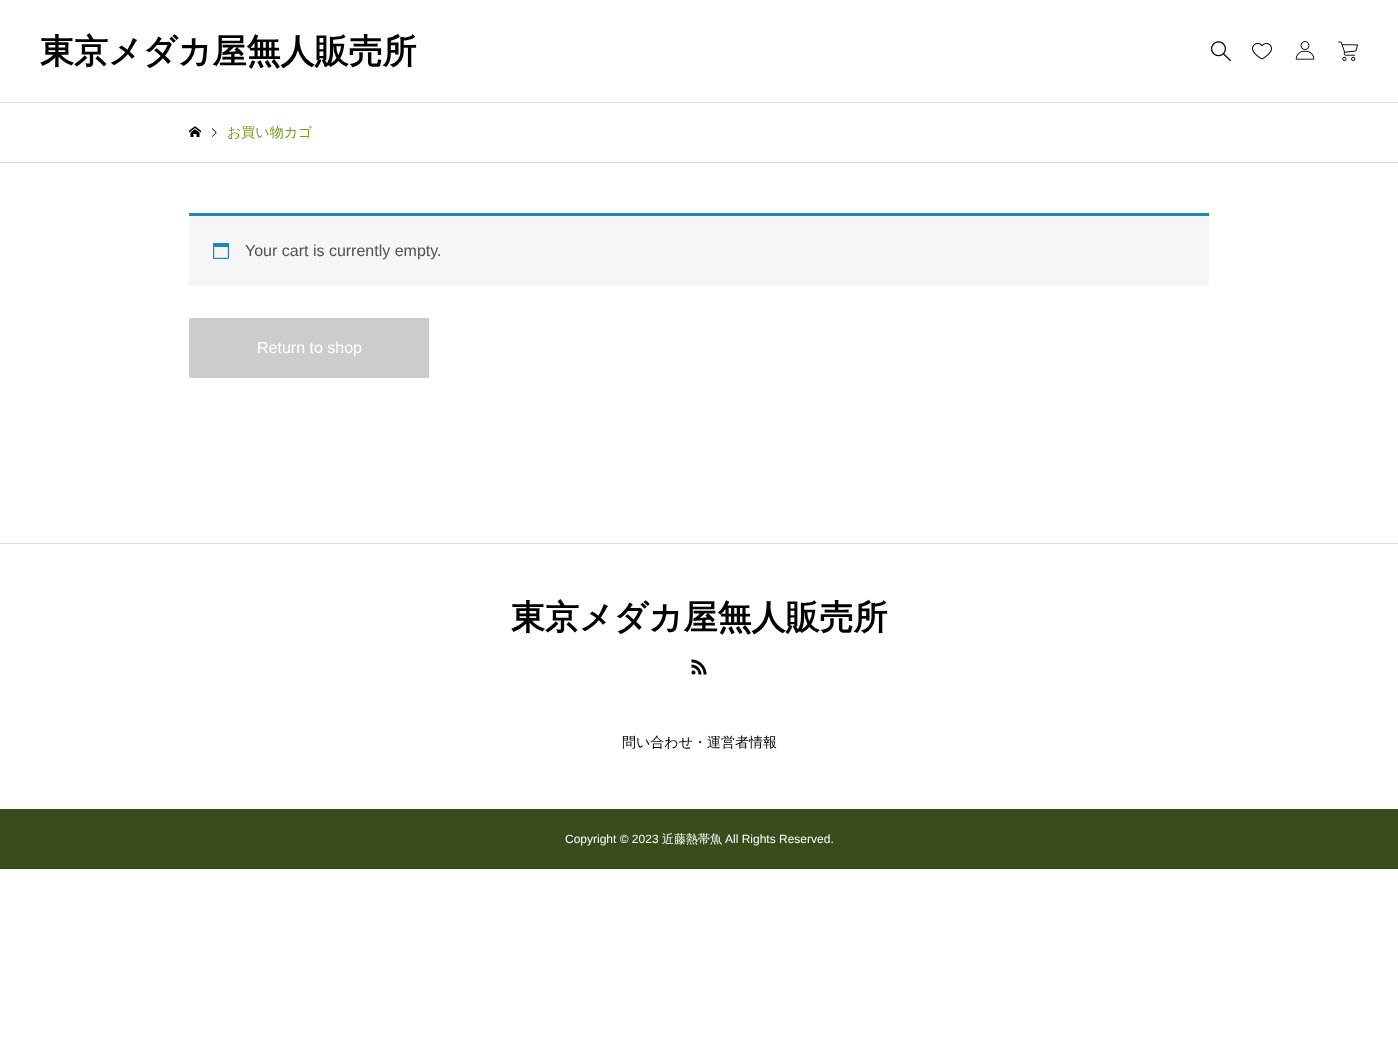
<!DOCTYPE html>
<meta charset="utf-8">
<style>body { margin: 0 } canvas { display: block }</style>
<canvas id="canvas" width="1398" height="1061"></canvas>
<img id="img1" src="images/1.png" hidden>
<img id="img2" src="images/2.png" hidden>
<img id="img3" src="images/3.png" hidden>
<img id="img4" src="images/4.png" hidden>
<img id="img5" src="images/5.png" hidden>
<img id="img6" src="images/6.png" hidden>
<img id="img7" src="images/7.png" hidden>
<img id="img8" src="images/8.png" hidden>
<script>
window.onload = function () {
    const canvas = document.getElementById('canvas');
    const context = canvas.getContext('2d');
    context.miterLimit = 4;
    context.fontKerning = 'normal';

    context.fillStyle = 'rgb(255, 255, 255)';
    context.fillRect(0, 0, 1398, 1061);
    context.drawImage(document.getElementById('img1'), 1211, 41, 20, 21);
    context.drawImage(document.getElementById('img2'), 1252, 43, 20, 17);
    context.drawImage(document.getElementById('img3'), 1295, 41, 20, 19);
    context.drawImage(document.getElementById('img4'), 1338, 41, 20, 20);
    context.fillStyle = 'rgb(221, 221, 221)';
    context.fillRect(0, 102, 1398, 1);
    context.fillRect(0, 162, 1398, 1);
    context.drawImage(document.getElementById('img5'), 189, 126, 12, 11);
    context.drawImage(document.getElementById('img6'), 212, 128, 5, 9);
    context.fillStyle = 'rgb(247, 246, 247)';
    context.fillRect(189, 216, 1020, 70);
    context.fillStyle = 'rgb(30, 133, 190)';
    context.fillRect(189, 213, 1020, 3);
    context.drawImage(document.getElementById('img7'), 213, 243, 16, 16);
    context.fillStyle = 'rgb(204, 204, 204)';
    context.fillRect(189, 318, 240, 60);
    context.fillStyle = 'rgb(221, 221, 221)';
    context.fillRect(0, 543, 1398, 1);
    context.drawImage(document.getElementById('img8'), 691, 659, 16, 16);
    context.fillStyle = 'rgb(58, 76, 28)';
    context.fillRect(0, 809, 1398, 60);
    context.font = 'bold 34px WenQuanYi Zen Hei';
    context.fillStyle = 'rgb(0, 0, 0)';
    context.fillText('東京メダカ屋無人販売所', 40, 63);
    context.font = '500 14px WenQuanYi Zen Hei';
    context.fillStyle = 'rgb(114, 155, 35)';
    context.fillText('お買い物カゴ', 227, 137);
    context.font = '16px Liberation Sans';
    context.fillStyle = 'rgb(81, 81, 81)';
    context.fillText('Your cart is currently empty.', 245, 256);
    context.fillStyle = 'rgb(255, 255, 255)';
    context.fillText('Return to shop', 257, 353);
    context.font = 'bold 34px WenQuanYi Zen Hei';
    context.fillStyle = 'rgb(0, 0, 0)';
    context.fillText('東京メダカ屋無人販売所', 511, 629);
    context.font = '500 14px WenQuanYi Zen Hei';
    context.fillText('問い合わせ・運営者情報', 622, 747);
    context.font = '12px Liberation Sans';
    context.fillStyle = 'rgb(255, 255, 255)';
    context.fillText('Copyright © 2023', 565, 843);
    context.font = '500 12px WenQuanYi Zen Hei';
    context.fillText('近藤熱帯魚', 662, 843);
    context.font = '12px Liberation Sans';
    context.fillText('All Rights Reserved.', 725, 843);
};
</script>
